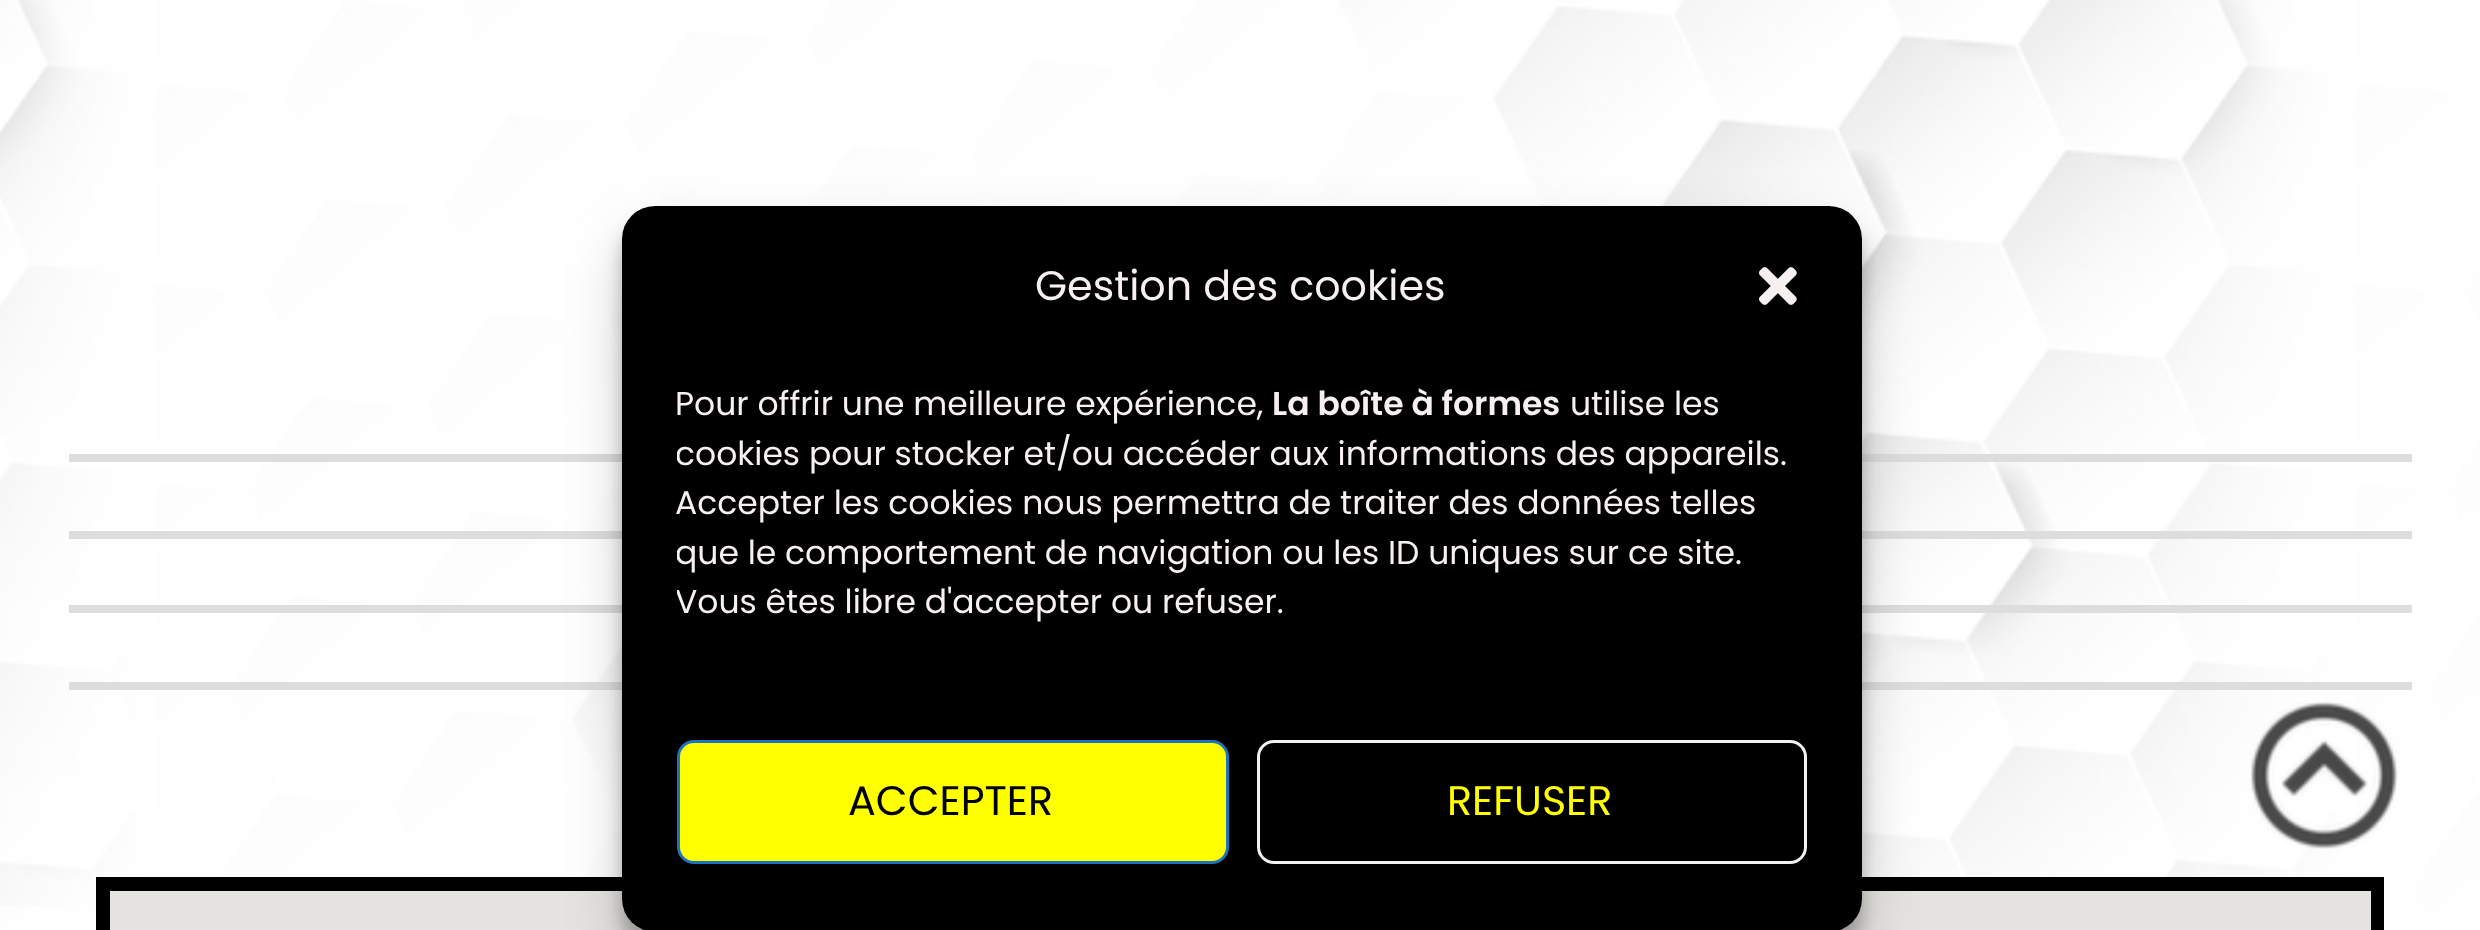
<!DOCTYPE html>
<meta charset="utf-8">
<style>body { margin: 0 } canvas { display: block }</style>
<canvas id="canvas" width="2480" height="930"></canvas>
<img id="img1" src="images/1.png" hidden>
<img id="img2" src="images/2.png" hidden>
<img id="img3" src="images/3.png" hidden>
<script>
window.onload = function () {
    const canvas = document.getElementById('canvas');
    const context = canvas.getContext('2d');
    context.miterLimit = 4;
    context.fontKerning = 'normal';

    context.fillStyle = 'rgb(255, 255, 255)';
    context.fillRect(0, 0, 2480, 930);
    context.drawImage(document.getElementById('img1'), 0, 0, 2480, 930);
    context.fillStyle = 'rgb(221, 221, 221)';
    context.fillRect(69, 454, 2343, 8);
    context.fillRect(69, 531, 2343, 8);
    context.fillRect(69, 605, 2343, 8);
    context.fillRect(69, 682, 2343, 8);
    context.strokeStyle = 'rgb(0, 0, 0)';
    context.lineWidth = 14;
    context.strokeRect(103, 884, 2274, 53);
    context.fillStyle = 'rgb(229, 227, 223)';
    context.fillRect(110, 891, 2261, 39);
    context.save();
    context.beginPath();
    context.moveTo(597, 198);
    context.lineTo(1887, 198);
    context.lineTo(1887, 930);
    context.lineTo(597, 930);
    context.closePath();
    context.moveTo(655, 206);
    context.lineTo(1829, 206);
    context.bezierCurveTo(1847, 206, 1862, 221, 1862, 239);
    context.lineTo(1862, 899);
    context.bezierCurveTo(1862, 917, 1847, 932, 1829, 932);
    context.lineTo(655, 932);
    context.bezierCurveTo(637, 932, 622, 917, 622, 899);
    context.lineTo(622, 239);
    context.bezierCurveTo(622, 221, 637, 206, 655, 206);
    context.closePath();
    context.clip('evenodd');
    context.fillStyle = 'rgba(0, 0, 0, 0.23)';
    context.filter = 'blur(8px)';
    context.beginPath();
    context.roundRect(622, 223, 1240, 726, 33);
    context.fill();
    context.filter = 'none';
    context.restore();
    context.save();
    context.beginPath();
    context.moveTo(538, 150);
    context.lineTo(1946, 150);
    context.lineTo(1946, 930);
    context.lineTo(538, 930);
    context.closePath();
    context.moveTo(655, 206);
    context.lineTo(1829, 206);
    context.bezierCurveTo(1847, 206, 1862, 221, 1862, 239);
    context.lineTo(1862, 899);
    context.bezierCurveTo(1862, 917, 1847, 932, 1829, 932);
    context.lineTo(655, 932);
    context.bezierCurveTo(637, 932, 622, 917, 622, 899);
    context.lineTo(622, 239);
    context.bezierCurveTo(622, 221, 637, 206, 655, 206);
    context.closePath();
    context.clip('evenodd');
    context.fillStyle = 'rgba(0, 0, 0, 0.19)';
    context.filter = 'blur(27.5px)';
    context.beginPath();
    context.roundRect(622, 234, 1240, 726, 33);
    context.fill();
    context.filter = 'none';
    context.restore();
    context.fillStyle = 'rgb(0, 0, 0)';
    context.beginPath();
    context.roundRect(622, 206, 1240, 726, 33);
    context.fill();
    context.drawImage(document.getElementById('img2'), 1759, 267, 38, 38);
    context.fillStyle = 'rgb(255, 255, 0)';
    context.beginPath();
    context.roundRect(678.5, 741.5, 549, 121, 15.5);
    context.fill();
    context.strokeStyle = 'rgb(30, 115, 190)';
    context.lineWidth = 3;
    context.stroke();
    context.beginPath();
    context.roundRect(1258.5, 741.5, 547, 121, 15.5);
    context.strokeStyle = 'rgb(242, 242, 242)';
    context.stroke();
    context.drawImage(document.getElementById('img3'), 2250, 701, 148, 148);
    context.font = '41.25px Poppins';
    context.fillStyle = 'rgb(246, 240, 240)';
    context.fillText('Gestion des cookies', 1035, 300);
    context.font = '33px Poppins';
    context.fillText('Pour offrir une meilleure expérience,', 675, 415);
    context.font = '600 33px Poppins';
    context.fillText('La boîte à formes', 1272, 415);
    context.font = '33px Poppins';
    context.fillText('utilise les', 1570, 415);
    context.save();
    context.beginPath();
    context.rect(677, 380, 1130, 305);
    context.clip();
    context.fillText('cookies pour stocker et/ou accéder aux informations des appareils.', 675, 465);
    context.restore();
    context.fillText('Accepter les cookies nous permettra de traiter des données telles', 675, 514);
    context.save();
    context.beginPath();
    context.rect(677, 380, 1130, 305);
    context.clip();
    context.fillText('que le comportement de navigation ou les ID uniques sur ce site.', 675, 564);
    context.fillText('Vous êtes libre d\'accepter ou refuser.', 675, 613);
    context.restore();
    context.font = '41.25px Poppins';
    context.fillStyle = 'rgb(0, 0, 0)';
    context.fillText('ACCEPTER', 848, 815);
    context.fillStyle = 'rgb(255, 255, 0)';
    context.fillText('REFUSER', 1447, 815);
};
</script>
